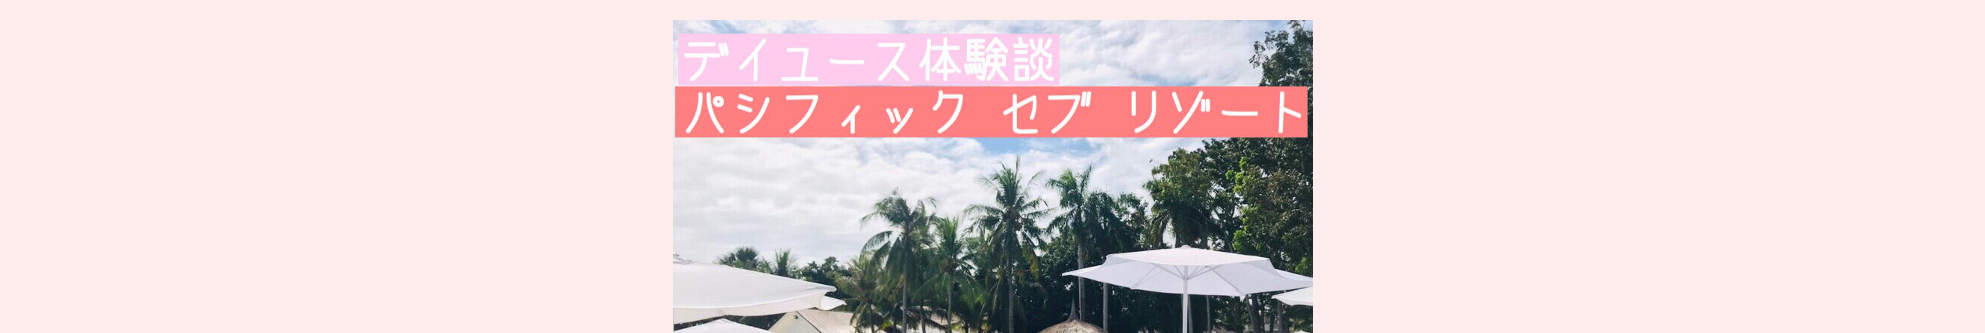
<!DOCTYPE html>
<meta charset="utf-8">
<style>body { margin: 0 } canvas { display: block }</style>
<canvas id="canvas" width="1985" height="333"></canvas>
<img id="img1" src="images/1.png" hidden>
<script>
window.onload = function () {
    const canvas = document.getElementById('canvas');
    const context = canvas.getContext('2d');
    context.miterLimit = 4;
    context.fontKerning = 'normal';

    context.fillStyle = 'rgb(255, 237, 237)';
    context.fillRect(0, 0, 1985, 333);
    context.drawImage(document.getElementById('img1'), 673, 20, 640, 313);
};
</script>
